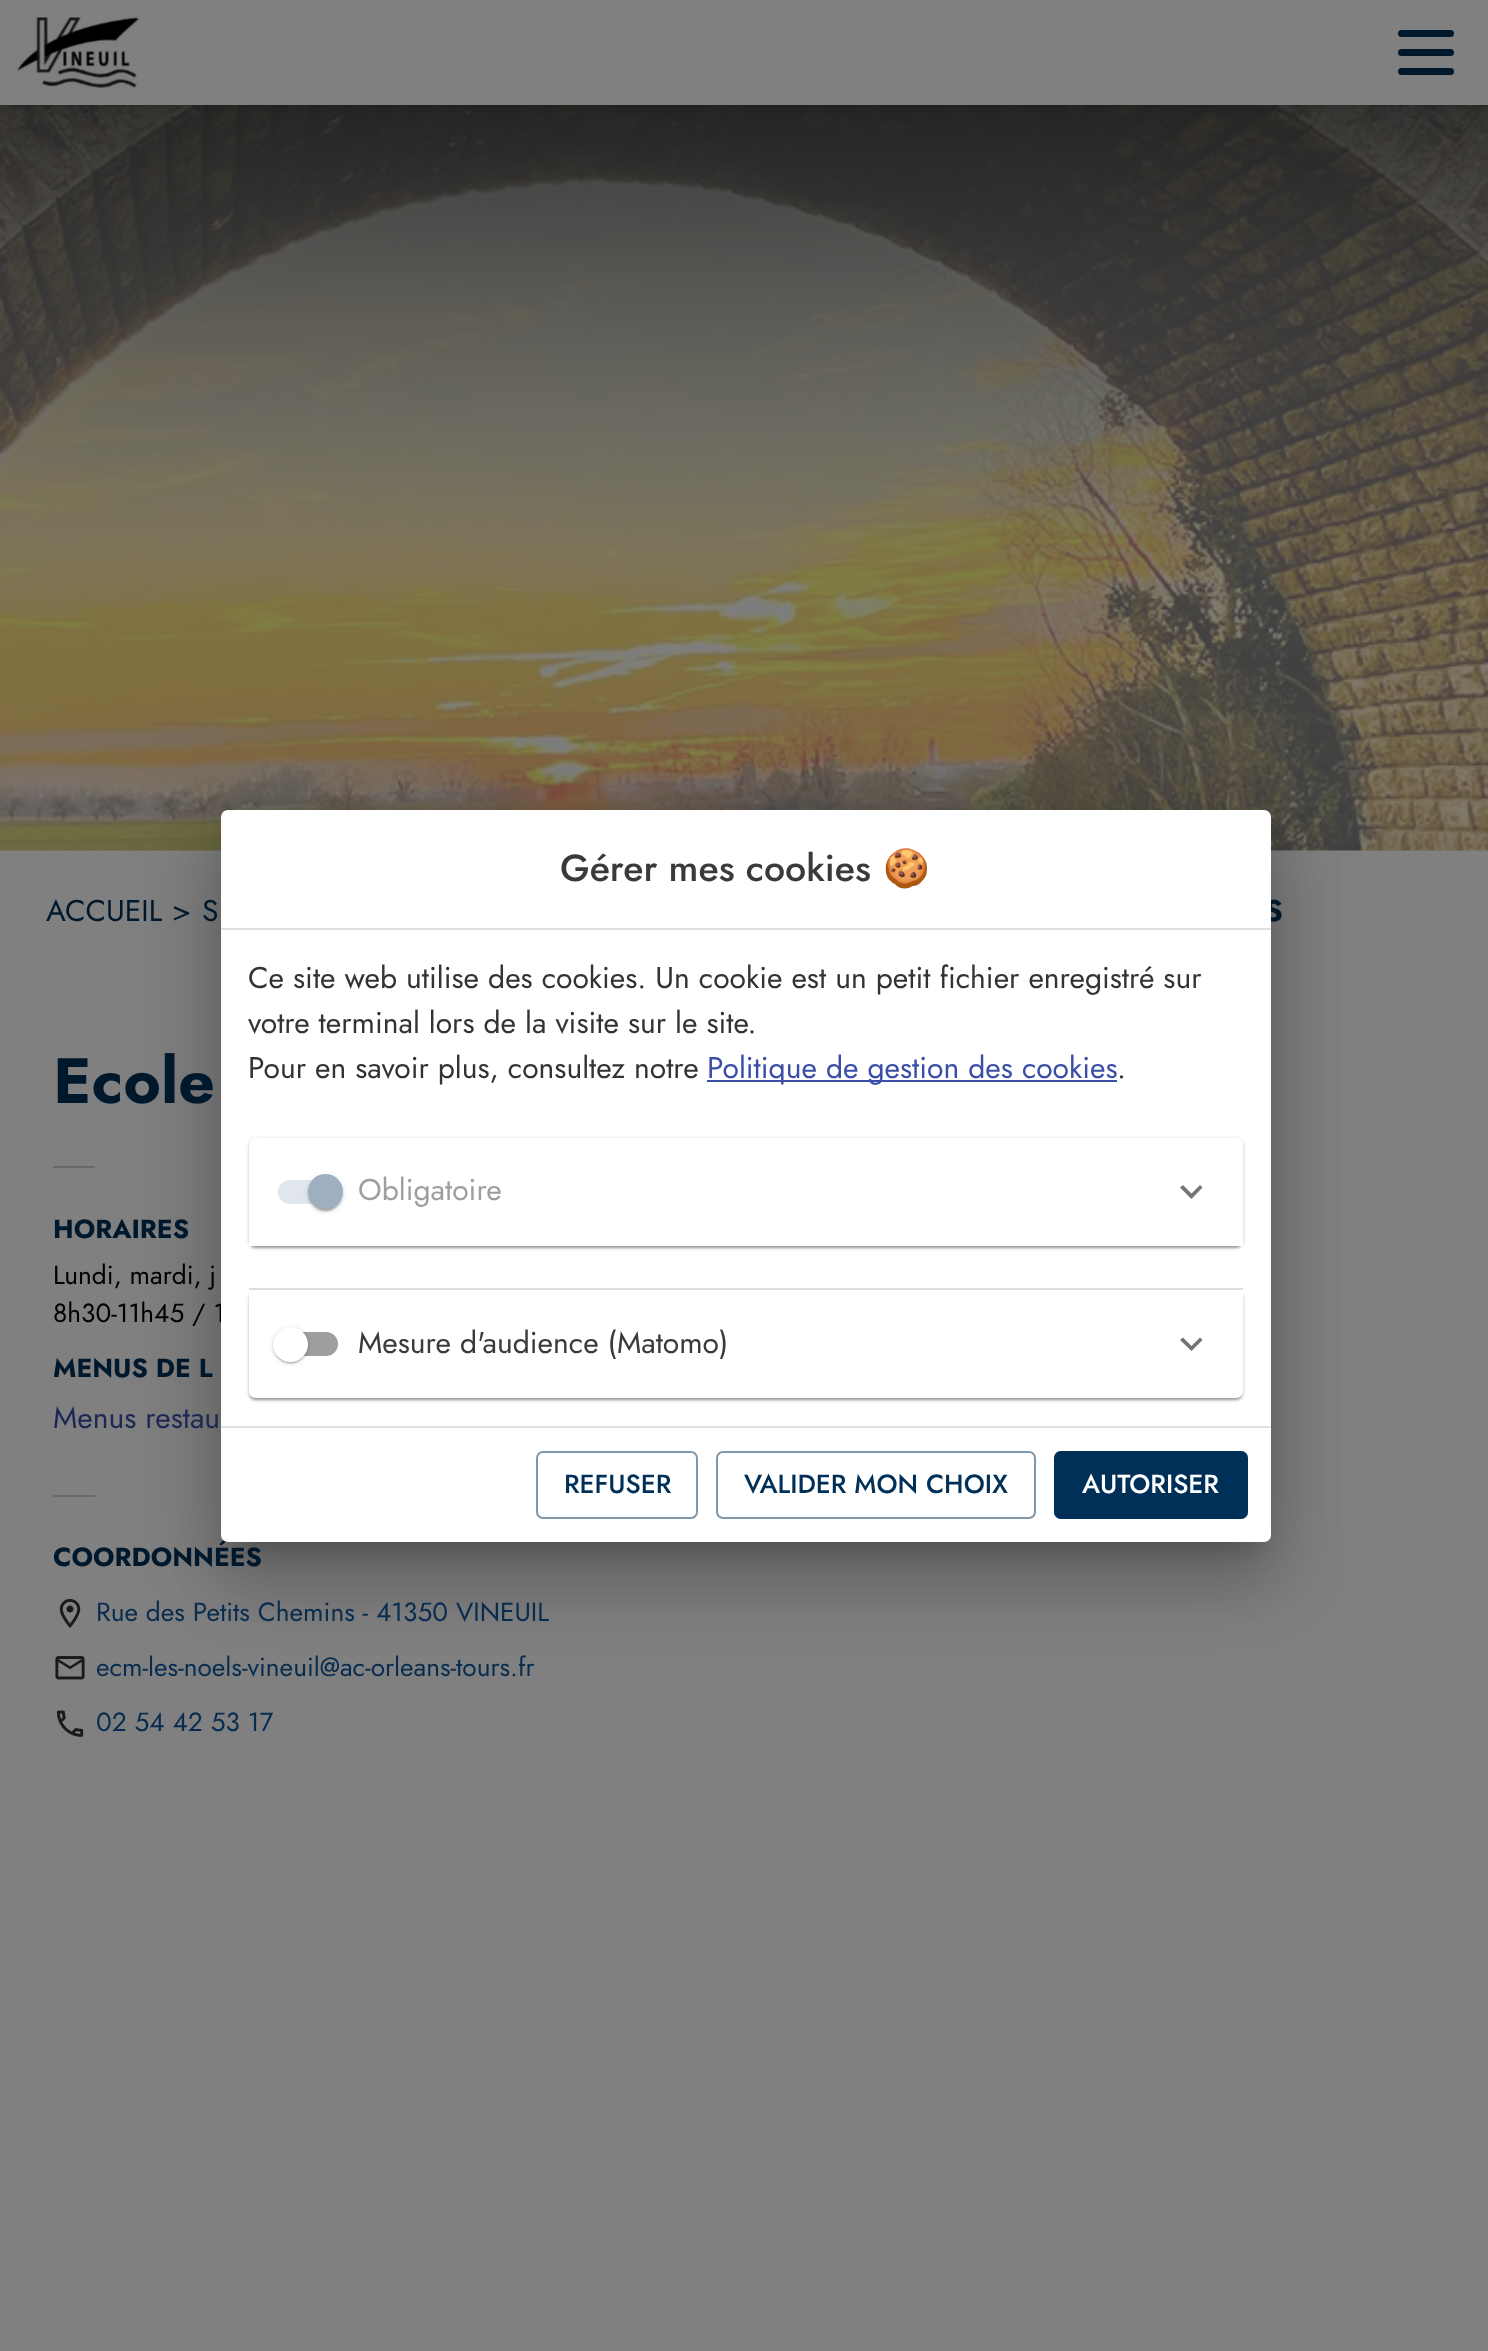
<!DOCTYPE html>
<meta charset="utf-8">
<style>body { margin: 0 } canvas { display: block }</style>
<canvas id="canvas" width="1488" height="2351"></canvas>
<img id="img1" src="images/2.png" hidden>
<img id="img2" src="images/1.png" hidden>
<img id="img3" src="images/3.png" hidden>
<img id="img4" src="images/4.png" hidden>
<img id="img5" src="images/5.png" hidden>
<script>
window.onload = function () {
    const canvas = document.getElementById('canvas');
    const context = canvas.getContext('2d');
    context.miterLimit = 4;
    context.fontKerning = 'normal';
    let gradient;

    context.fillStyle = 'rgb(124, 124, 124)';
    context.fillRect(0, 0, 1488, 2351);
    context.drawImage(document.getElementById('img1'), 0, 105, 1488, 746);
    gradient = context.createLinearGradient(745, -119, 745, 851);
    gradient.addColorStop(0, 'rgb(0, 0, 0)');
    gradient.addColorStop(0.69, 'rgba(128, 128, 128, 0.5)');
    context.fillStyle = gradient;
    context.fillRect(0, 105, 1488, 746);
    context.fillStyle = 'rgb(128, 128, 128)';
    context.fillRect(0, 851, 1488, 1500);
    context.fillStyle = 'rgb(104, 104, 104)';
    context.fillRect(53, 1166, 42, 2);
    context.fillRect(53, 1495, 42, 2);
    context.fillStyle = 'rgba(0, 0, 0, 0.12)';
    context.filter = 'blur(40px)';
    context.beginPath();
    context.roundRect(207, 812, 1078, 760, 21);
    context.fill();
    context.filter = 'none';
    context.fillStyle = 'rgba(0, 0, 0, 0.14)';
    context.filter = 'blur(33px)';
    context.beginPath();
    context.roundRect(215, 847, 1061, 742, 12);
    context.fill();
    context.filter = 'none';
    context.fillStyle = 'rgba(0, 0, 0, 0.2)';
    context.filter = 'blur(13px)';
    context.beginPath();
    context.rect(233, 842, 1025, 707);
    context.fill();
    context.filter = 'none';
    context.fillStyle = 'rgba(0, 0, 0, 0.25)';
    context.filter = 'blur(3.5px)';
    context.beginPath();
    context.rect(0, 0, 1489, 105);
    context.fill();
    context.filter = 'none';
    context.fillStyle = 'rgb(128, 128, 128)';
    context.fillRect(0, 0, 1488, 105);
    context.drawImage(document.getElementById('img2'), 17, 17, 122, 71);
    context.fillStyle = 'rgb(0, 24, 44)';
    context.beginPath();
    context.roundRect(1398, 30, 56, 7, 3.5);
    context.fill();
    context.beginPath();
    context.roundRect(1398, 49, 56, 7, 3.5);
    context.fill();
    context.beginPath();
    context.roundRect(1398, 68, 56, 7, 3.5);
    context.fill();
    context.drawImage(document.getElementById('img3'), 59, 1598, 22, 30);
    context.drawImage(document.getElementById('img4'), 55, 1656, 30, 24);
    context.drawImage(document.getElementById('img5'), 56, 1710, 28, 27);
    context.font = '30px Jost';
    context.fillText('ACCUEIL', 46, 921);
    context.fillText('>', 172, 921);
    context.fillText('S', 202, 921);
    context.font = 'bold 30px Jost';
    context.fillText('S', 1264, 921);
    context.font = 'bold 64px Jost';
    context.fillText('Ecole', 53, 1103);
    context.font = 'bold 26.25px Jost';
    context.fillText('HORAIRES', 53, 1238);
    context.font = '26.25px Jost';
    context.fillStyle = 'rgb(0, 0, 0)';
    context.fillText('Lundi, mardi, j', 53, 1284);
    context.fillText('8h30-11h45 / 1', 53, 1322);
    context.font = 'bold 26.25px Jost';
    context.fillStyle = 'rgb(0, 24, 44)';
    context.fillText('MENUS DE L', 53, 1377);
    context.font = '30px Jost';
    context.fillStyle = 'rgb(29, 39, 84)';
    context.fillText('Menus restau', 53, 1428);
    context.font = 'bold 26.25px Jost';
    context.fillStyle = 'rgb(0, 24, 44)';
    context.fillText('COORDONNÉES', 53, 1566);
    context.fillStyle = 'rgb(255, 255, 255)';
    context.beginPath();
    context.roundRect(221, 810, 1050, 732, 7);
    context.fill();
    context.fillStyle = 'rgb(0, 48, 87)';
    context.beginPath();
    context.roundRect(1054, 1451, 194, 68, 7);
    context.fill();
    context.beginPath();
    context.roundRect(1055, 1452, 192, 66, 6);
    context.strokeStyle = 'rgba(0, 48, 87, 0.5)';
    context.lineWidth = 2;
    context.stroke();
    context.font = '500 26.25px Jost';
    context.fillStyle = 'rgb(255, 255, 255)';
    context.fillText('AUTORISER', 1082, 1493);
    context.beginPath();
    context.roundRect(717, 1452, 318, 66, 6);
    context.strokeStyle = 'rgb(128, 152, 171)';
    context.stroke();
    context.fillStyle = 'rgb(0, 48, 87)';
    context.fillText('VALIDER MON CHOIX', 744, 1493);
    context.beginPath();
    context.roundRect(537, 1452, 160, 66, 6);
    context.stroke();
    context.fillText('REFUSER', 564, 1493);
    context.save();
    context.beginPath();
    context.moveTo(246, 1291);
    context.lineTo(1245, 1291);
    context.lineTo(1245, 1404);
    context.lineTo(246, 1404);
    context.closePath();
    context.moveTo(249, 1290);
    context.lineTo(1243, 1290);
    context.lineTo(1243, 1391);
    context.bezierCurveTo(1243, 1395, 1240, 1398, 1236, 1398);
    context.lineTo(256, 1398);
    context.bezierCurveTo(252, 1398, 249, 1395, 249, 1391);
    context.closePath();
    context.clip('evenodd');
    context.fillStyle = 'rgba(0, 0, 0, 0.2)';
    context.filter = 'blur(1px)';
    context.beginPath();
    context.roundRect(250, 1295, 991, 105, 5);
    context.fill();
    context.filter = 'none';
    context.restore();
    context.save();
    context.beginPath();
    context.moveTo(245, 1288);
    context.lineTo(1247, 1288);
    context.lineTo(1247, 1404);
    context.lineTo(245, 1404);
    context.closePath();
    context.moveTo(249, 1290);
    context.lineTo(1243, 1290);
    context.lineTo(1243, 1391);
    context.bezierCurveTo(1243, 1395, 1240, 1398, 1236, 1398);
    context.lineTo(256, 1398);
    context.bezierCurveTo(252, 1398, 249, 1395, 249, 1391);
    context.closePath();
    context.clip('evenodd');
    context.fillStyle = 'rgba(0, 0, 0, 0.14)';
    context.filter = 'blur(1px)';
    context.beginPath();
    context.roundRect(249, 1292, 994, 108, 7);
    context.fill();
    context.filter = 'none';
    context.restore();
    context.save();
    context.beginPath();
    context.moveTo(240, 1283);
    context.lineTo(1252, 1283);
    context.lineTo(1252, 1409);
    context.lineTo(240, 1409);
    context.closePath();
    context.moveTo(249, 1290);
    context.lineTo(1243, 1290);
    context.lineTo(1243, 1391);
    context.bezierCurveTo(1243, 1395, 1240, 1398, 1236, 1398);
    context.lineTo(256, 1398);
    context.bezierCurveTo(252, 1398, 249, 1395, 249, 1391);
    context.closePath();
    context.clip('evenodd');
    context.fillStyle = 'rgba(0, 0, 0, 0.12)';
    context.filter = 'blur(2.5px)';
    context.beginPath();
    context.roundRect(249, 1292, 994, 108, 7);
    context.fill();
    context.filter = 'none';
    context.restore();
    context.fillStyle = 'rgb(117, 117, 117)';
    context.beginPath();
    context.moveTo(1200, 1337.5);
    context.lineTo(1191.5, 1346);
    context.lineTo(1183, 1337.5);
    context.lineTo(1180, 1340);
    context.lineTo(1191.5, 1351);
    context.lineTo(1202.5, 1340);
    context.closePath();
    context.fill();
    context.fillStyle = 'rgb(158, 158, 158)';
    context.beginPath();
    context.roundRect(278, 1332, 60, 24, 12);
    context.fill();
    context.fillStyle = 'rgba(0, 0, 0, 0.2)';
    context.filter = 'blur(1px)';
    context.beginPath();
    context.roundRect(275, 1332, 31, 31, 15.5);
    context.fill();
    context.filter = 'none';
    context.fillStyle = 'rgba(0, 0, 0, 0.14)';
    context.filter = 'blur(1px)';
    context.beginPath();
    context.roundRect(273, 1328, 35, 35, 17.5);
    context.fill();
    context.filter = 'none';
    context.fillStyle = 'rgba(0, 0, 0, 0.12)';
    context.filter = 'blur(2.5px)';
    context.beginPath();
    context.roundRect(273, 1328, 35, 35, 17.5);
    context.fill();
    context.filter = 'none';
    context.fillStyle = 'rgb(255, 255, 255)';
    context.beginPath();
    context.arc(290.5, 1344.5, 17.5, 0, 2 * Math.PI);
    context.fill();
    context.font = '30px Jost';
    context.fillStyle = 'rgb(58, 58, 58)';
    context.fillText('Mesure d\'audience (Matomo)', 358, 1353);
    context.fillStyle = 'rgba(0, 0, 0, 0.12)';
    context.fillRect(249, 1288, 994, 2);
    context.save();
    context.beginPath();
    context.rect(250, 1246, 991, 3);
    context.clip();
    context.fillStyle = 'rgba(0, 0, 0, 0.2)';
    context.filter = 'blur(1px)';
    context.beginPath();
    context.roundRect(250, 1143, 991, 105, 5);
    context.fill();
    context.filter = 'none';
    context.restore();
    context.save();
    context.beginPath();
    context.moveTo(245, 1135);
    context.lineTo(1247, 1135);
    context.lineTo(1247, 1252);
    context.lineTo(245, 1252);
    context.closePath();
    context.moveTo(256, 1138);
    context.lineTo(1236, 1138);
    context.bezierCurveTo(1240, 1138, 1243, 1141, 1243, 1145);
    context.lineTo(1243, 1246);
    context.lineTo(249, 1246);
    context.lineTo(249, 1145);
    context.bezierCurveTo(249, 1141, 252, 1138, 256, 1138);
    context.closePath();
    context.clip('evenodd');
    context.fillStyle = 'rgba(0, 0, 0, 0.14)';
    context.filter = 'blur(1px)';
    context.beginPath();
    context.roundRect(249, 1139, 994, 109, 7);
    context.fill();
    context.filter = 'none';
    context.restore();
    context.save();
    context.beginPath();
    context.moveTo(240, 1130);
    context.lineTo(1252, 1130);
    context.lineTo(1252, 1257);
    context.lineTo(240, 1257);
    context.closePath();
    context.moveTo(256, 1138);
    context.lineTo(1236, 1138);
    context.bezierCurveTo(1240, 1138, 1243, 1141, 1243, 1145);
    context.lineTo(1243, 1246);
    context.lineTo(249, 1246);
    context.lineTo(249, 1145);
    context.bezierCurveTo(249, 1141, 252, 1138, 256, 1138);
    context.closePath();
    context.clip('evenodd');
    context.filter = 'blur(2.5px)';
    context.beginPath();
    context.roundRect(249, 1139, 994, 109, 7);
    context.fill();
    context.filter = 'none';
    context.restore();
    context.fillStyle = 'rgb(117, 117, 117)';
    context.beginPath();
    context.moveTo(1200, 1185);
    context.lineTo(1191.5, 1193.5);
    context.lineTo(1183, 1185);
    context.lineTo(1180, 1187.5);
    context.lineTo(1191.5, 1199);
    context.lineTo(1202.5, 1187.5);
    context.closePath();
    context.fill();
    context.fillStyle = 'rgb(224, 230, 235)';
    context.beginPath();
    context.roundRect(278, 1180, 60, 24, 12);
    context.fill();
    context.fillStyle = 'rgba(0, 0, 0, 0.2)';
    context.filter = 'blur(1px)';
    context.beginPath();
    context.roundRect(310, 1180, 31, 31, 15.5);
    context.fill();
    context.filter = 'none';
    context.fillStyle = 'rgba(0, 0, 0, 0.14)';
    context.filter = 'blur(1px)';
    context.beginPath();
    context.roundRect(308, 1176, 35, 35, 17.5);
    context.fill();
    context.filter = 'none';
    context.fillStyle = 'rgba(0, 0, 0, 0.12)';
    context.filter = 'blur(2.5px)';
    context.beginPath();
    context.roundRect(308, 1176, 35, 35, 17.5);
    context.fill();
    context.filter = 'none';
    context.fillStyle = 'rgb(158, 176, 191)';
    context.beginPath();
    context.arc(325.5, 1191.5, 17.5, 0, 2 * Math.PI);
    context.fill();
    context.fillStyle = 'rgb(158, 158, 158)';
    context.fillText('Obligatoire', 358, 1200);
    context.fillStyle = 'rgb(51, 51, 51)';
    context.fillText('.', 1117, 1078);
    context.fillStyle = 'rgb(58, 77, 167)';
    context.fillRect(707, 1080, 410, 2);
    context.fillText('Politique de gestion des cookies', 707, 1078);
    context.fillStyle = 'rgb(51, 51, 51)';
    context.fillText('Pour en savoir plus, consultez notre', 248, 1078);
    context.fillText('votre terminal lors de la visite sur le site.', 248, 1033);
    context.fillText('Ce site web utilise des cookies. Un cookie est un petit fichier enregistré sur', 248, 988);
    context.fillStyle = 'rgb(224, 224, 224)';
    context.fillRect(221, 1426, 1050, 2);
    context.fillRect(221, 928, 1050, 2);
    context.font = '37.5px Noto Color Emoji';
    context.fillStyle = 'rgb(58, 58, 58)';
    context.fillText('🍪', 883, 881);
    context.font = '500 37.5px Jost';
    context.fillText('Gérer mes cookies', 560, 881);
    context.font = '26.25px Jost';
    context.fillStyle = 'rgb(8, 44, 79)';
    context.fillText('Rue des Petits Chemins - 41350 VINEUIL', 96, 1621);
    context.fillText('ecm-les-noels-vineuil@ac-orleans-tours.fr', 96, 1676);
    context.fillText('02 54 42 53 17', 96, 1731);
};
</script>
